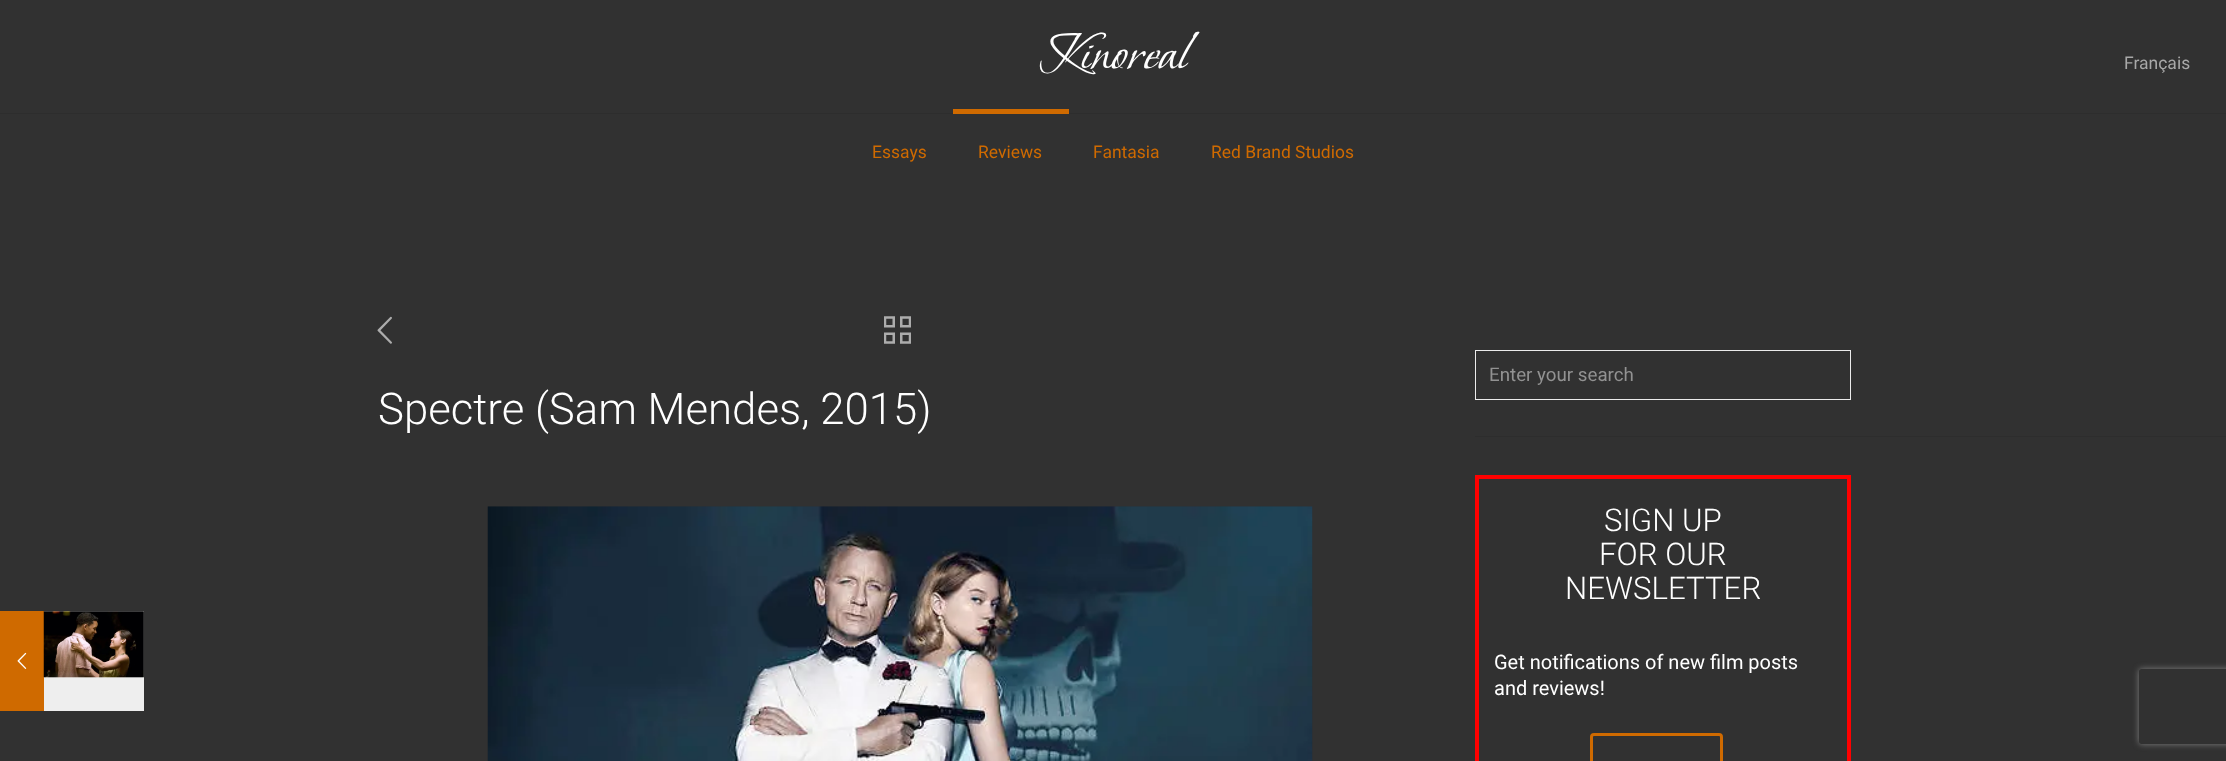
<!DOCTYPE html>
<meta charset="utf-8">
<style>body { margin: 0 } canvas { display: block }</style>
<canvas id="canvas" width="2226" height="761"></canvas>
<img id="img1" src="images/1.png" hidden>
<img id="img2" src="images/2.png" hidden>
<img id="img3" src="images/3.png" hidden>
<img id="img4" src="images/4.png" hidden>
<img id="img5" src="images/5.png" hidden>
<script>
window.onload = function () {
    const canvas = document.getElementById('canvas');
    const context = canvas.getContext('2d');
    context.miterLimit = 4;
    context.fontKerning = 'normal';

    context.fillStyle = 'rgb(49, 49, 49)';
    context.fillRect(0, 0, 2226, 761);
    context.fillStyle = 'rgb(207, 106, 0)';
    context.fillRect(0, 611, 44, 100);
    context.drawImage(document.getElementById('img1'), 17, 652, 10, 17);
    context.fillStyle = 'rgb(238, 238, 238)';
    context.fillRect(44, 611, 100, 100);
    context.drawImage(document.getElementById('img2'), 43, 611, 101, 67);
    context.fillStyle = 'rgb(45, 45, 45)';
    context.fillRect(0, 113, 2226, 1);
    context.fillStyle = 'rgb(207, 106, 0)';
    context.fillRect(953, 109, 116, 5);
    context.drawImage(document.getElementById('img3'), 377, 316, 15, 28);
    context.drawImage(document.getElementById('img4'), 884, 316, 27, 28);
    context.drawImage(document.getElementById('img5'), 487, 506, 826, 255);
    context.strokeStyle = 'rgb(235, 235, 235)';
    context.strokeRect(1475.5, 350.5, 375, 49);
    context.fillStyle = 'rgb(45, 45, 45)';
    context.fillRect(1475, 436, 751, 1);
    context.strokeStyle = 'rgb(255, 0, 0)';
    context.lineWidth = 4;
    context.strokeRect(1477, 477, 372, 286);
    context.beginPath();
    context.roundRect(1591.5, 734.5, 130, 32, 2.5);
    context.strokeStyle = 'rgb(207, 106, 0)';
    context.lineWidth = 3;
    context.stroke();
    context.save();
    context.beginPath();
    context.moveTo(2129, 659);
    context.lineTo(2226, 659);
    context.lineTo(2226, 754);
    context.lineTo(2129, 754);
    context.closePath();
    context.moveTo(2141.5, 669);
    context.lineTo(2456.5, 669);
    context.bezierCurveTo(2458, 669, 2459, 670, 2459, 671.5);
    context.lineTo(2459, 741.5);
    context.bezierCurveTo(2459, 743, 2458, 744, 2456.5, 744);
    context.lineTo(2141.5, 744);
    context.bezierCurveTo(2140, 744, 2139, 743, 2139, 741.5);
    context.lineTo(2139, 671.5);
    context.bezierCurveTo(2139, 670, 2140, 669, 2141.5, 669);
    context.closePath();
    context.clip('evenodd');
    context.fillStyle = 'rgb(128, 128, 128)';
    context.filter = 'blur(3px)';
    context.beginPath();
    context.roundRect(2139, 669, 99, 75, 2.5);
    context.fill();
    context.filter = 'none';
    context.restore();
    context.font = '60px Bonheur Royale';
    context.fillStyle = 'rgb(255, 255, 255)';
    context.fillText('Kinoreal', 1038, 68);
    context.font = '17.5px Roboto';
    context.fillStyle = 'rgb(168, 168, 168)';
    context.fillText('Français', 2124, 69);
    context.fillStyle = 'rgb(207, 106, 0)';
    context.fillText('Essays', 872, 158);
    context.fillText('Reviews', 978, 158);
    context.fillText('Fantasia', 1093, 158);
    context.fillText('Red Brand Studios', 1211, 158);
    context.font = '300 43.75px Roboto';
    context.fillStyle = 'rgb(255, 255, 255)';
    context.fillText('Spectre (Sam Mendes, 2015)', 378, 424);
    context.font = '18.75px Roboto';
    context.fillStyle = 'rgb(146, 146, 146)';
    context.fillText('Enter your search', 1489, 381);
    context.font = '300 31.25px Roboto';
    context.fillStyle = 'rgb(255, 255, 255)';
    context.fillText('SIGN UP', 1604, 531);
    context.fillText('FOR OUR', 1599, 565);
    context.fillText('NEWSLETTER', 1565, 599);
    context.font = '20px Roboto';
    context.fillText('Get notifications of new film posts', 1494, 669);
    context.fillText('and reviews!', 1494, 695);
};
</script>
